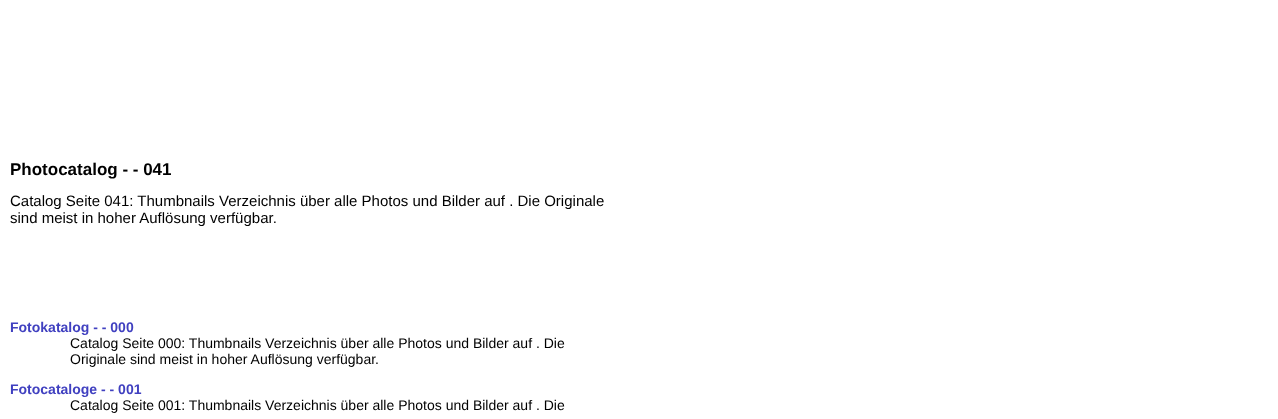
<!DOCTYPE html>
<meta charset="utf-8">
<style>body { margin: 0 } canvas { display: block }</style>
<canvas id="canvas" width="1278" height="419"></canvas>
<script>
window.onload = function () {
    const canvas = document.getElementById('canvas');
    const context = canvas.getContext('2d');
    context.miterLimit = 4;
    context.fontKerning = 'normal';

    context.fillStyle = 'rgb(255, 255, 255)';
    context.fillRect(0, 0, 1278, 419);
    context.font = 'bold 17px Liberation Sans';
    context.fillStyle = 'rgb(0, 0, 0)';
    context.fillText('Photocatalog - - 041', 10, 175);
    context.font = '15px Liberation Sans';
    context.fillText('Catalog Seite 041: Thumbnails Verzeichnis über alle Photos und Bilder auf . Die Originale', 10, 206);
    context.fillText('sind meist in hoher Auflösung verfügbar.', 10, 223);
    context.font = 'bold 14px Liberation Sans';
    context.fillStyle = 'rgb(64, 64, 192)';
    context.fillText('Fotokatalog - - 000', 10, 332);
    context.font = '14px Liberation Sans';
    context.fillStyle = 'rgb(0, 0, 0)';
    context.fillText('Catalog Seite 000: Thumbnails Verzeichnis über alle Photos und Bilder auf . Die', 70, 348);
    context.fillText('Originale sind meist in hoher Auflösung verfügbar.', 70, 364);
    context.font = 'bold 14px Liberation Sans';
    context.fillStyle = 'rgb(64, 64, 192)';
    context.fillText('Fotocataloge - - 001', 10, 394);
    context.font = '14px Liberation Sans';
    context.fillStyle = 'rgb(0, 0, 0)';
    context.fillText('Catalog Seite 001: Thumbnails Verzeichnis über alle Photos und Bilder auf . Die', 70, 410);
};
</script>
